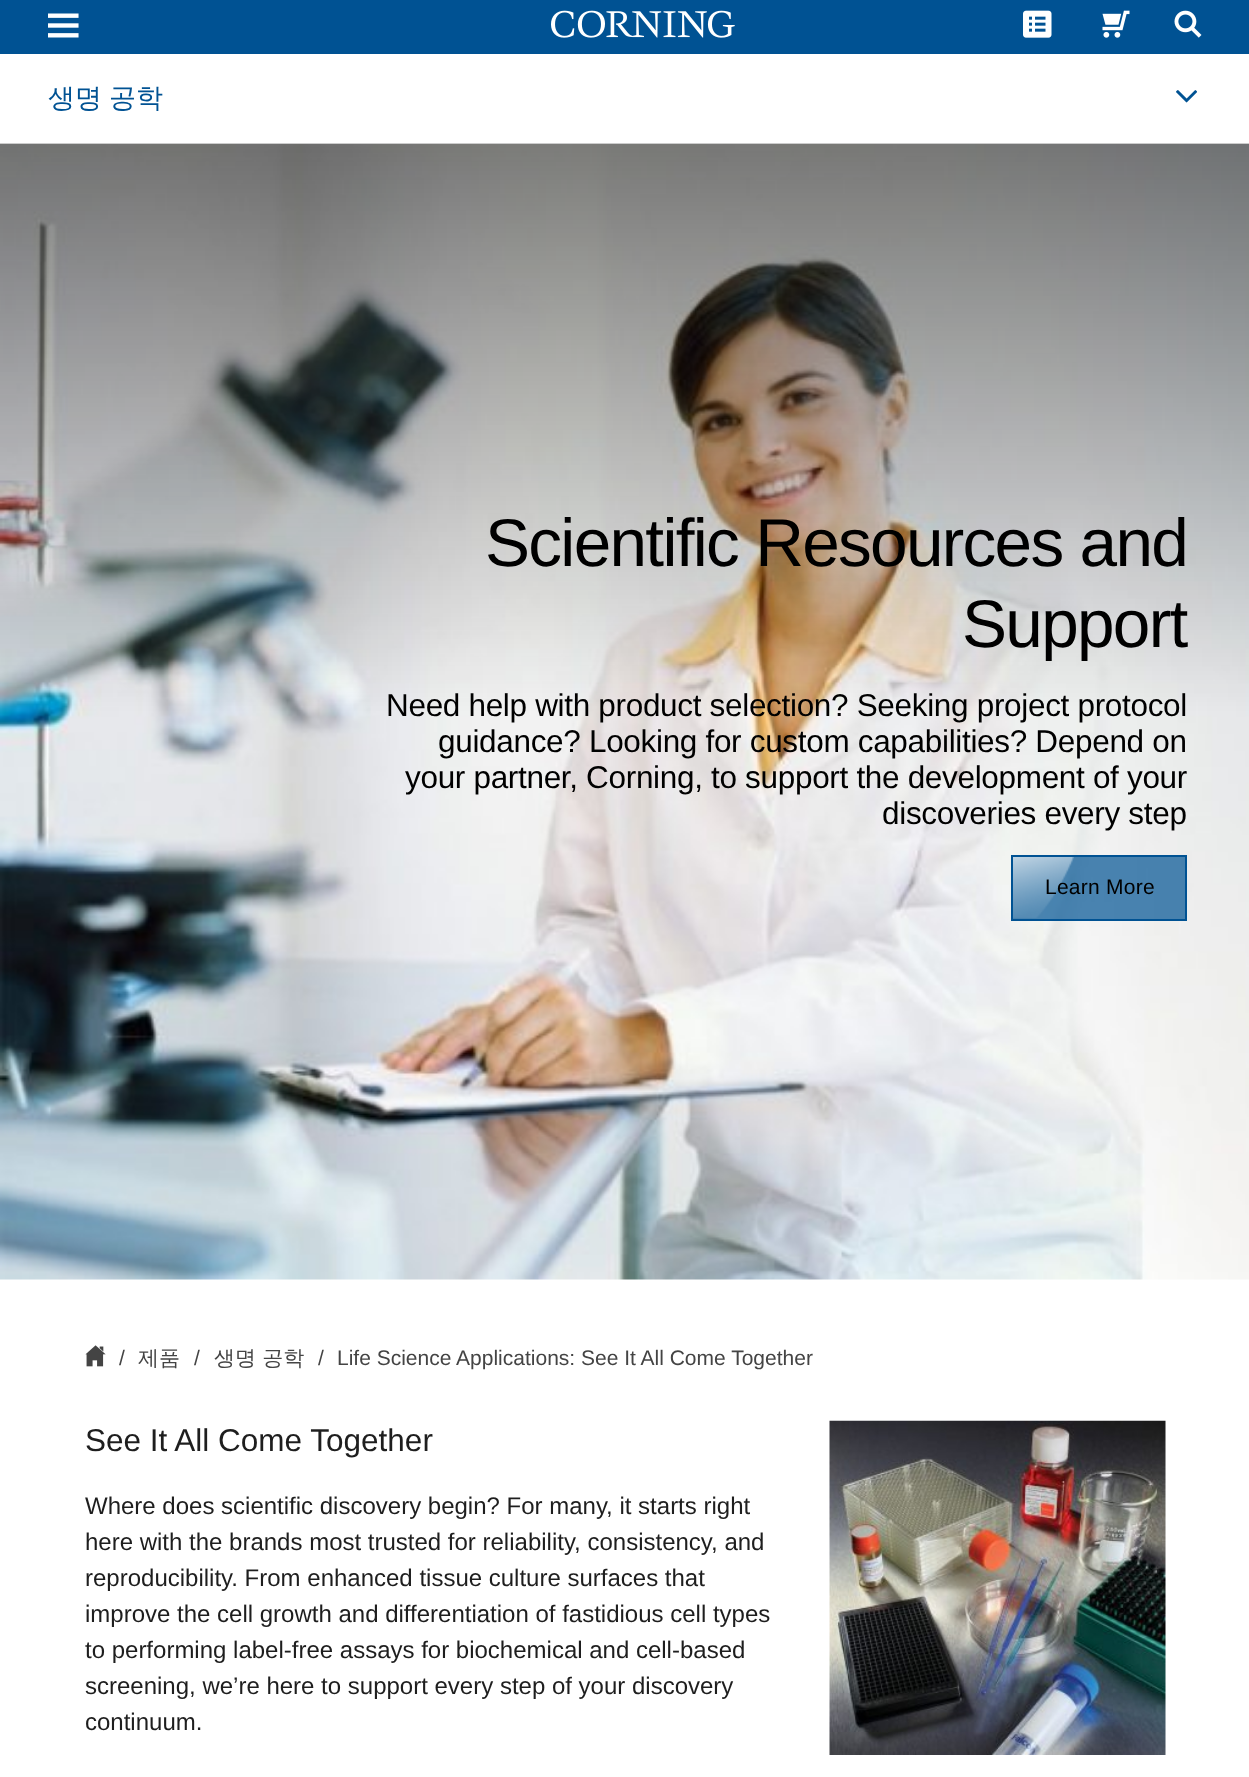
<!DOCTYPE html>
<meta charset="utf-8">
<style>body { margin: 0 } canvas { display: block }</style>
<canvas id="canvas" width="1249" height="1777"></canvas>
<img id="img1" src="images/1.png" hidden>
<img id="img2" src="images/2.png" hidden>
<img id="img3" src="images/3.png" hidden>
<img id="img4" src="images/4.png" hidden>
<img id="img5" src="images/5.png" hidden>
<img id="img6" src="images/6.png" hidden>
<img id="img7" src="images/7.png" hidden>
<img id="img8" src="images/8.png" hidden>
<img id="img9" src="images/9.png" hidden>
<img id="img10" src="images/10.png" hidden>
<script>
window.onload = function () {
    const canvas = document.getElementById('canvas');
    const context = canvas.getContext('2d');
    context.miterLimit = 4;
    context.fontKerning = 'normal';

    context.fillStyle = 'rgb(255, 255, 255)';
    context.fillRect(0, 0, 1249, 1777);
    context.fillStyle = 'rgb(0, 82, 147)';
    context.fillRect(0, 0, 1249, 54);
    context.drawImage(document.getElementById('img1'), 48, 13, 31, 25);
    context.drawImage(document.getElementById('img2'), 551, 10, 184, 28);
    context.drawImage(document.getElementById('img3'), 1023, 10, 29, 28);
    context.drawImage(document.getElementById('img4'), 1102, 10, 28, 28);
    context.drawImage(document.getElementById('img5'), 1174, 10, 28, 28);
    context.fillStyle = 'rgb(204, 204, 204)';
    context.fillRect(0, 143, 1249, 1);
    context.drawImage(document.getElementById('img6'), 1176, 90, 21, 13);
    context.drawImage(document.getElementById('img7'), 0, 144, 1249, 1136);
    context.fillStyle = 'rgba(0, 82, 147, 0.7)';
    context.fillRect(1013, 857, 172, 62);
    context.drawImage(document.getElementById('img8'), 1013, 857, 61, 61);
    context.strokeStyle = 'rgb(0, 82, 147)';
    context.lineWidth = 2;
    context.strokeRect(1012, 856, 174, 64);
    context.drawImage(document.getElementById('img9'), 85, 1345, 21, 22);
    context.drawImage(document.getElementById('img10'), 829, 1420, 337, 335);
    context.wordSpacing = '-1px';
    context.font = '500 27px WenQuanYi Zen Hei';
    context.fillStyle = 'rgb(0, 82, 147)';
    context.fillText('생명 공학', 48, 107);
    context.letterSpacing = '-1.7px';
    context.wordSpacing = '0px';
    context.font = '67.5px Liberation Sans';
    context.fillStyle = 'rgb(0, 0, 0)';
    context.fillText('Scientific Resources and', 485, 566);
    context.fillText('Support', 962, 647);
    context.letterSpacing = '-0.32px';
    context.font = '31.5px Liberation Sans';
    context.fillText('Need help with product selection? Seeking project protocol', 386, 716);
    context.fillText('guidance? Looking for custom capabilities? Depend on', 438, 752);
    context.fillText('your partner, Corning, to support the development of your', 405, 788);
    context.fillText('discoveries every step', 882, 824);
    context.letterSpacing = '0.25px';
    context.font = '21px Liberation Sans';
    context.fillText('Learn More', 1045, 894);
    context.letterSpacing = '0px';
    context.fillStyle = 'rgb(68, 68, 68)';
    context.fillText('/', 119, 1365);
    context.font = '500 21px WenQuanYi Zen Hei';
    context.fillText('제품', 138, 1365);
    context.font = '21px Liberation Sans';
    context.fillText('/', 194, 1365);
    context.font = '500 21px WenQuanYi Zen Hei';
    context.fillText('생명 공학', 214, 1365);
    context.font = '21px Liberation Sans';
    context.fillText('/', 318, 1365);
    context.fillText('Life Science Applications: See It All Come Together', 337, 1365);
    context.font = '31.5px Liberation Sans';
    context.fillStyle = 'rgb(30, 30, 30)';
    context.fillText('See It All Come Together', 85, 1451);
    context.font = '24px Liberation Sans';
    context.fillText('Where does scientific discovery begin? For many, it starts right', 85, 1514);
    context.fillText('here with the brands most trusted for reliability, consistency, and', 85, 1550);
    context.fillText('reproducibility. From enhanced tissue culture surfaces that', 85, 1586);
    context.fillText('improve the cell growth and differentiation of fastidious cell types', 85, 1622);
    context.fillText('to performing label-free assays for biochemical and cell-based', 85, 1658);
    context.fillText('screening, we’re here to support every step of your discovery', 85, 1694);
    context.fillText('continuum.', 85, 1730);
};
</script>
